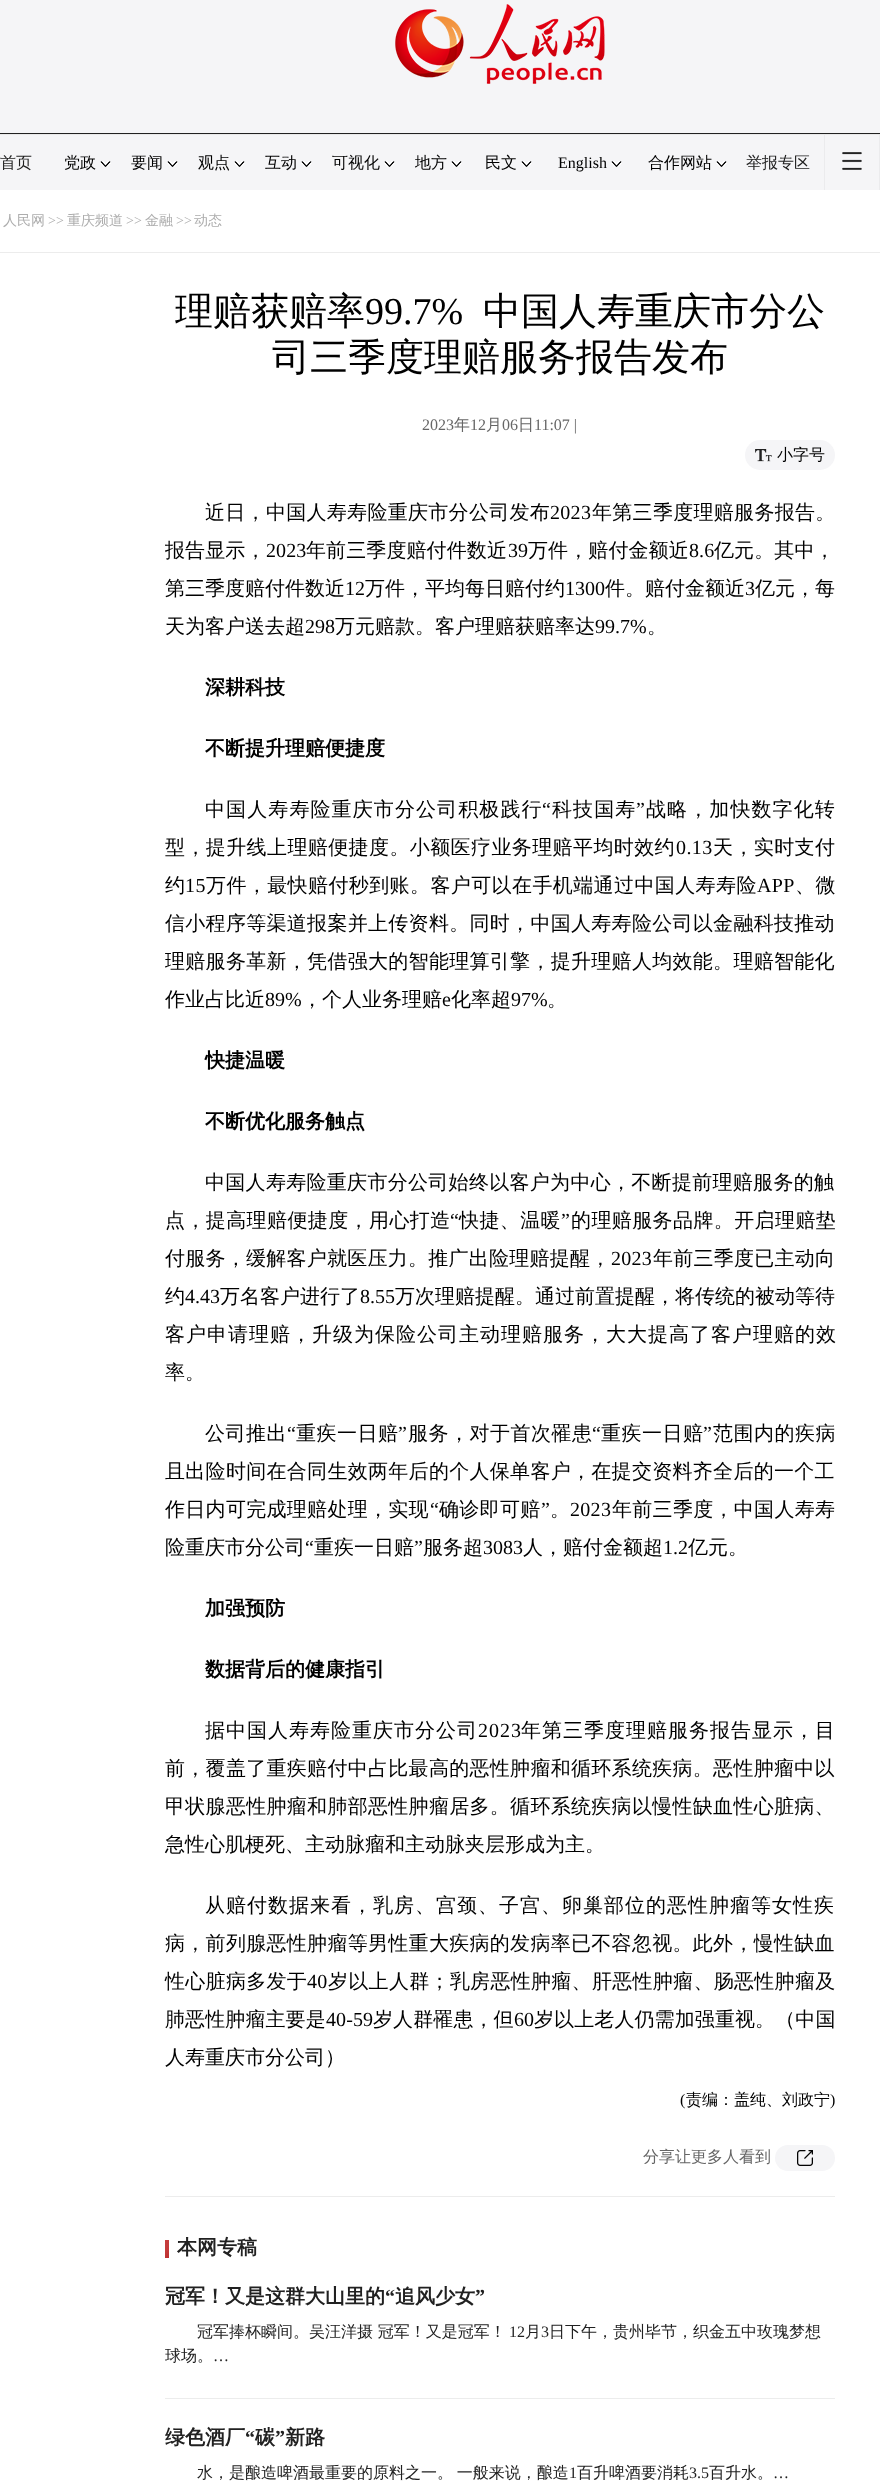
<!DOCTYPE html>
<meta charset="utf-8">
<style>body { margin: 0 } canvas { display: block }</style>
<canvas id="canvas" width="880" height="2488"></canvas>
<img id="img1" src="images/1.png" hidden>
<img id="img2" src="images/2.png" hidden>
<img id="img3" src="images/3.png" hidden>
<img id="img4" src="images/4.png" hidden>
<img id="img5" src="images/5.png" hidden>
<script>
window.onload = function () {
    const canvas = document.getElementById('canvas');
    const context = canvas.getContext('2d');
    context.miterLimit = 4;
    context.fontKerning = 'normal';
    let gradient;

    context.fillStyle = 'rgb(255, 255, 255)';
    context.fillRect(0, 0, 880, 2488);
    context.fillStyle = 'rgb(245, 245, 247)';
    context.fillRect(0, 0, 880, 133);
    context.fillStyle = 'rgb(33, 33, 33)';
    context.fillRect(0, 133, 880, 1);
    context.drawImage(document.getElementById('img1'), 395, 4, 210, 80);
    context.fillStyle = 'rgb(233, 233, 233)';
    context.fillRect(0, 134, 880, 1);
    context.fillStyle = 'rgb(245, 245, 247)';
    context.fillRect(0, 135, 879, 55);
    context.drawImage(document.getElementById('img2'), 100, 161, 11, 6);
    context.drawImage(document.getElementById('img2'), 167, 161, 11, 6);
    context.drawImage(document.getElementById('img2'), 234, 161, 11, 6);
    context.drawImage(document.getElementById('img2'), 301, 161, 11, 6);
    context.drawImage(document.getElementById('img2'), 384, 161, 11, 6);
    context.drawImage(document.getElementById('img2'), 451, 161, 11, 6);
    context.drawImage(document.getElementById('img2'), 521, 161, 11, 6);
    context.drawImage(document.getElementById('img2'), 611, 161, 11, 6);
    context.drawImage(document.getElementById('img2'), 716, 161, 11, 6);
    context.fillStyle = 'rgb(235, 235, 237)';
    context.fillRect(879, 135, 1, 55);
    context.fillRect(824, 135, 1, 55);
    context.drawImage(document.getElementById('img3'), 842, 152, 20, 18);
    context.fillStyle = 'rgb(236, 236, 236)';
    context.fillRect(0, 252, 880, 1);
    context.fillStyle = 'rgb(245, 245, 247)';
    context.beginPath();
    context.roundRect(745, 440, 90, 30, 15);
    context.fill();
    context.drawImage(document.getElementById('img4'), 755, 449, 17, 13);
    context.beginPath();
    context.roundRect(775, 2145, 60, 26, 13);
    context.fill();
    context.drawImage(document.getElementById('img5'), 797, 2150, 16, 16);
    context.fillStyle = 'rgb(236, 236, 236)';
    context.fillRect(165, 2196, 670, 1);
    gradient = context.createLinearGradient(162, 2244, 173, 2255);
    gradient.addColorStop(0, 'rgb(197, 61, 61)');
    gradient.addColorStop(0.49, 'rgb(196, 58, 58)');
    gradient.addColorStop(1, 'rgb(187, 45, 45)');
    context.fillStyle = gradient;
    context.fillRect(165, 2240, 4, 18);
    context.fillStyle = 'rgb(236, 236, 236)';
    context.fillRect(165, 2398, 670, 1);
    context.font = '500 16px WenQuanYi Zen Hei';
    context.fillStyle = 'rgb(33, 33, 33)';
    context.fillText('首页', 0, 168);
    context.fillStyle = 'rgb(0, 0, 0)';
    context.fillText('党政', 64, 168);
    context.fillText('要闻', 131, 168);
    context.fillText('观点', 198, 168);
    context.fillText('互动', 265, 168);
    context.fillText('可视化', 332, 168);
    context.fillText('地方', 415, 168);
    context.fillText('民文', 485, 168);
    context.font = '16px Liberation Serif';
    context.fillText('English', 558, 168);
    context.font = '500 16px WenQuanYi Zen Hei';
    context.fillText('合作网站', 648, 168);
    context.fillStyle = 'rgb(33, 33, 33)';
    context.fillText('举报专区', 746, 168);
    context.font = '500 14px WenQuanYi Zen Hei';
    context.fillStyle = 'rgb(173, 173, 173)';
    context.fillText('人民网', 3, 225);
    context.font = '14px Liberation Serif';
    context.fillText('>>', 48, 225);
    context.font = '500 14px WenQuanYi Zen Hei';
    context.fillText('重庆频道', 67, 225);
    context.font = '14px Liberation Serif';
    context.fillText('>>', 126, 225);
    context.font = '500 14px WenQuanYi Zen Hei';
    context.fillText('金融', 145, 225);
    context.font = '14px Liberation Serif';
    context.fillText('>>', 176, 225);
    context.font = '500 14px WenQuanYi Zen Hei';
    context.fillText('动态', 194, 225);
    context.font = '500 38px WenQuanYi Zen Hei';
    context.fillStyle = 'rgb(0, 0, 0)';
    context.fillText('理赔获赔率', 175, 324);
    context.font = '38px Liberation Serif';
    context.fillText('99.7%', 365, 324);
    context.font = '500 38px WenQuanYi Zen Hei';
    context.fillText('中国人寿重庆市分公', 483, 324);
    context.fillText('司三季度理赔服务报告发布', 272, 370);
    context.font = '16px Liberation Serif';
    context.fillStyle = 'rgb(102, 102, 102)';
    context.fillText('2023', 422, 430);
    context.font = '500 16px WenQuanYi Zen Hei';
    context.fillText('年', 454, 430);
    context.font = '16px Liberation Serif';
    context.fillText('12', 470, 430);
    context.font = '500 16px WenQuanYi Zen Hei';
    context.fillText('月', 486, 430);
    context.font = '16px Liberation Serif';
    context.fillText('06', 502, 430);
    context.font = '500 16px WenQuanYi Zen Hei';
    context.fillText('日', 518, 430);
    context.font = '16px Liberation Serif';
    context.fillText('11:07 |', 534, 430);
    context.font = '500 16px WenQuanYi Zen Hei';
    context.fillStyle = 'rgb(0, 0, 0)';
    context.fillText('小字号', 777, 460);
    context.letterSpacing = '0.3px';
    context.font = '500 20px WenQuanYi Zen Hei';
    context.fillText('近日，中国人寿寿险重庆市分公司发布', 205, 519);
    context.font = '20px Liberation Serif';
    context.fillText('2023', 550, 519);
    context.font = '500 20px WenQuanYi Zen Hei';
    context.fillText('年第三季度理赔服务报告。', 592, 519);
    context.letterSpacing = '0.1px';
    context.fillText('报告显示，', 165, 557);
    context.font = '20px Liberation Serif';
    context.fillText('2023', 266, 557);
    context.font = '500 20px WenQuanYi Zen Hei';
    context.fillText('年前三季度赔付件数近', 306, 557);
    context.font = '20px Liberation Serif';
    context.fillText('39', 508, 557);
    context.font = '500 20px WenQuanYi Zen Hei';
    context.fillText('万件，赔付金额近', 528, 557);
    context.font = '20px Liberation Serif';
    context.fillText('8.6', 689, 557);
    context.font = '500 20px WenQuanYi Zen Hei';
    context.fillText('亿元。其中，', 714, 557);
    context.letterSpacing = '0px';
    context.fillText('第三季度赔付件数近', 165, 595);
    context.font = '20px Liberation Serif';
    context.fillText('12', 345, 595);
    context.font = '500 20px WenQuanYi Zen Hei';
    context.fillText('万件，平均每日赔付约', 365, 595);
    context.font = '20px Liberation Serif';
    context.fillText('1300', 565, 595);
    context.font = '500 20px WenQuanYi Zen Hei';
    context.fillText('件。赔付金额近', 605, 595);
    context.font = '20px Liberation Serif';
    context.fillText('3', 745, 595);
    context.font = '500 20px WenQuanYi Zen Hei';
    context.fillText('亿元，每', 755, 595);
    context.fillText('天为客户送去超', 165, 633);
    context.font = '20px Liberation Serif';
    context.fillText('298', 305, 633);
    context.font = '500 20px WenQuanYi Zen Hei';
    context.fillText('万元赔款。客户理赔获赔率达', 335, 633);
    context.font = '20px Liberation Serif';
    context.fillText('99.7%', 595, 633);
    context.font = '500 20px WenQuanYi Zen Hei';
    context.fillText('。', 647, 633);
    context.font = 'bold 20px WenQuanYi Zen Hei';
    context.fillText('深耕科技', 205, 694);
    context.fillText('不断提升理赔便捷度', 205, 755);
    context.letterSpacing = '1.1px';
    context.font = '500 20px WenQuanYi Zen Hei';
    context.fillText('中国人寿寿险重庆市分公司积极践行', 205, 816);
    context.font = '20px Liberation Serif';
    context.fillText('“', 542, 816);
    context.font = '500 20px WenQuanYi Zen Hei';
    context.fillText('科技国寿', 552, 816);
    context.font = '20px Liberation Serif';
    context.fillText('”', 636, 816);
    context.font = '500 20px WenQuanYi Zen Hei';
    context.fillText('战略，加快数字化转', 646, 816);
    context.letterSpacing = '0.4px';
    context.fillText('型，提升线上理赔便捷度。小额医疗业务理赔平均时效约', 165, 854);
    context.font = '20px Liberation Serif';
    context.fillText('0.13', 676, 854);
    context.font = '500 20px WenQuanYi Zen Hei';
    context.fillText('天，实时支付', 713, 854);
    context.fillText('约', 165, 892);
    context.font = '20px Liberation Serif';
    context.fillText('15', 185, 892);
    context.font = '500 20px WenQuanYi Zen Hei';
    context.fillText('万件，最快赔付秒到账。客户可以在手机端通过中国人寿寿险', 206, 892);
    context.font = '20px Liberation Serif';
    context.fillText('APP', 757, 892);
    context.font = '500 20px WenQuanYi Zen Hei';
    context.fillText('、微', 795, 892);
    context.letterSpacing = '0.3px';
    context.fillText('信小程序等渠道报案并上传资料。同时，中国人寿寿险公司以金融科技推动', 165, 930);
    context.fillText('理赔服务革新，凭借强大的智能理算引擎，提升理赔人均效能。理赔智能化', 165, 968);
    context.letterSpacing = '0px';
    context.fillText('作业占比近', 165, 1006);
    context.font = '20px Liberation Serif';
    context.fillText('89%', 265, 1006);
    context.font = '500 20px WenQuanYi Zen Hei';
    context.fillText('，个人业务理赔', 302, 1006);
    context.font = '20px Liberation Serif';
    context.fillText('e', 442, 1006);
    context.font = '500 20px WenQuanYi Zen Hei';
    context.fillText('化率超', 451, 1006);
    context.font = '20px Liberation Serif';
    context.fillText('97%', 511, 1006);
    context.font = '500 20px WenQuanYi Zen Hei';
    context.fillText('。', 547, 1006);
    context.font = 'bold 20px WenQuanYi Zen Hei';
    context.fillText('快捷温暖', 205, 1067);
    context.fillText('不断优化服务触点', 205, 1128);
    context.letterSpacing = '0.3px';
    context.font = '500 20px WenQuanYi Zen Hei';
    context.fillText('中国人寿寿险重庆市分公司始终以客户为中心，不断提前理赔服务的触', 205, 1189);
    context.letterSpacing = '0.4px';
    context.fillText('点，提高理赔便捷度，用心打造', 165, 1227);
    context.font = '20px Liberation Serif';
    context.fillText('“', 450, 1227);
    context.font = '500 20px WenQuanYi Zen Hei';
    context.fillText('快捷、温暖', 459, 1227);
    context.font = '20px Liberation Serif';
    context.fillText('”', 561, 1227);
    context.font = '500 20px WenQuanYi Zen Hei';
    context.fillText('的理赔服务品牌。开启理赔垫', 571, 1227);
    context.letterSpacing = '0.25px';
    context.fillText('付服务，缓解客户就医压力。推广出险理赔提醒，', 165, 1265);
    context.font = '20px Liberation Serif';
    context.fillText('2023', 611, 1265);
    context.font = '500 20px WenQuanYi Zen Hei';
    context.fillText('年前三季度已主动向', 653, 1265);
    context.letterSpacing = '0px';
    context.fillText('约', 165, 1303);
    context.font = '20px Liberation Serif';
    context.fillText('4.43', 185, 1303);
    context.font = '500 20px WenQuanYi Zen Hei';
    context.fillText('万名客户进行了', 220, 1303);
    context.font = '20px Liberation Serif';
    context.fillText('8.55', 360, 1303);
    context.font = '500 20px WenQuanYi Zen Hei';
    context.fillText('万次理赔提醒。通过前置提醒，将传统的被动等待', 395, 1303);
    context.letterSpacing = '1px';
    context.fillText('客户申请理赔，升级为保险公司主动理赔服务，大大提高了客户理赔的效', 165, 1341);
    context.letterSpacing = '0px';
    context.fillText('率。', 165, 1379);
    context.letterSpacing = '0.5px';
    context.fillText('公司推出', 205, 1440);
    context.font = '20px Liberation Serif';
    context.fillText('“', 287, 1440);
    context.font = '500 20px WenQuanYi Zen Hei';
    context.fillText('重疾一日赔', 296, 1440);
    context.font = '20px Liberation Serif';
    context.fillText('”', 398, 1440);
    context.font = '500 20px WenQuanYi Zen Hei';
    context.fillText('服务，对于首次罹患', 408, 1440);
    context.font = '20px Liberation Serif';
    context.fillText('“', 592, 1440);
    context.font = '500 20px WenQuanYi Zen Hei';
    context.fillText('重疾一日赔', 601, 1440);
    context.font = '20px Liberation Serif';
    context.fillText('”', 703, 1440);
    context.font = '500 20px WenQuanYi Zen Hei';
    context.fillText('范围内的疾病', 713, 1440);
    context.letterSpacing = '0.3px';
    context.fillText('且出险时间在合同生效两年后的个人保单客户，在提交资料齐全后的一个工', 165, 1478);
    context.fillText('作日内可完成理赔处理，实现', 165, 1516);
    context.font = '20px Liberation Serif';
    context.fillText('“', 430, 1516);
    context.font = '500 20px WenQuanYi Zen Hei';
    context.fillText('确诊即可赔', 439, 1516);
    context.font = '20px Liberation Serif';
    context.fillText('”', 541, 1516);
    context.font = '500 20px WenQuanYi Zen Hei';
    context.fillText('。', 550, 1516);
    context.font = '20px Liberation Serif';
    context.fillText('2023', 570, 1516);
    context.font = '500 20px WenQuanYi Zen Hei';
    context.fillText('年前三季度，中国人寿寿', 612, 1516);
    context.letterSpacing = '0px';
    context.fillText('险重庆市分公司', 165, 1554);
    context.font = '20px Liberation Serif';
    context.fillText('“', 305, 1554);
    context.font = '500 20px WenQuanYi Zen Hei';
    context.fillText('重疾一日赔', 314, 1554);
    context.font = '20px Liberation Serif';
    context.fillText('”', 414, 1554);
    context.font = '500 20px WenQuanYi Zen Hei';
    context.fillText('服务超', 423, 1554);
    context.font = '20px Liberation Serif';
    context.fillText('3083', 483, 1554);
    context.font = '500 20px WenQuanYi Zen Hei';
    context.fillText('人，赔付金额超', 523, 1554);
    context.font = '20px Liberation Serif';
    context.fillText('1.2', 663, 1554);
    context.font = '500 20px WenQuanYi Zen Hei';
    context.fillText('亿元。', 688, 1554);
    context.font = 'bold 20px WenQuanYi Zen Hei';
    context.fillText('加强预防', 205, 1615);
    context.fillText('数据背后的健康指引', 205, 1676);
    context.letterSpacing = '1px';
    context.font = '500 20px WenQuanYi Zen Hei';
    context.fillText('据中国人寿寿险重庆市分公司', 205, 1737);
    context.font = '20px Liberation Serif';
    context.fillText('2023', 478, 1737);
    context.font = '500 20px WenQuanYi Zen Hei';
    context.fillText('年第三季度理赔服务报告显示，目', 521, 1737);
    context.letterSpacing = '0.3px';
    context.fillText('前，覆盖了重疾赔付中占比最高的恶性肿瘤和循环系统疾病。恶性肿瘤中以', 165, 1775);
    context.fillText('甲状腺恶性肿瘤和肺部恶性肿瘤居多。循环系统疾病以慢性缺血性心脏病、', 165, 1813);
    context.letterSpacing = '0px';
    context.fillText('急性心肌梗死、主动脉瘤和主动脉夹层形成为主。', 165, 1851);
    context.letterSpacing = '1px';
    context.fillText('从赔付数据来看，乳房、宫颈、子宫、卵巢部位的恶性肿瘤等女性疾', 205, 1912);
    context.letterSpacing = '0.3px';
    context.fillText('病，前列腺恶性肿瘤等男性重大疾病的发病率已不容忽视。此外，慢性缺血', 165, 1950);
    context.fillText('性心脏病多发于', 165, 1988);
    context.font = '20px Liberation Serif';
    context.fillText('40', 307, 1988);
    context.font = '500 20px WenQuanYi Zen Hei';
    context.fillText('岁以上人群；乳房恶性肿瘤、肝恶性肿瘤、肠恶性肿瘤及', 328, 1988);
    context.letterSpacing = '0.1px';
    context.fillText('肺恶性肿瘤主要是', 165, 2026);
    context.font = '20px Liberation Serif';
    context.fillText('40-59', 326, 2026);
    context.font = '500 20px WenQuanYi Zen Hei';
    context.fillText('岁人群罹患，但', 373, 2026);
    context.font = '20px Liberation Serif';
    context.fillText('60', 514, 2026);
    context.font = '500 20px WenQuanYi Zen Hei';
    context.fillText('岁以上老人仍需加强重视。（中国', 534, 2026);
    context.letterSpacing = '0px';
    context.fillText('人寿重庆市分公司）', 165, 2064);
    context.font = '16px Liberation Serif';
    context.fillText('(', 680, 2105);
    context.font = '500 16px WenQuanYi Zen Hei';
    context.fillText('责编：盖纯、刘政宁', 686, 2105);
    context.font = '16px Liberation Serif';
    context.fillText(')', 830, 2105);
    context.font = '500 16px WenQuanYi Zen Hei';
    context.fillStyle = 'rgb(102, 102, 102)';
    context.fillText('分享让更多人看到', 643, 2162);
    context.font = 'bold 20px WenQuanYi Zen Hei';
    context.fillStyle = 'rgb(33, 33, 33)';
    context.fillText('本网专稿', 177, 2254);
    context.fillText('冠军！又是这群大山里的', 165, 2303);
    context.font = 'bold 20px Liberation Serif';
    context.fillText('“', 385, 2303);
    context.font = 'bold 20px WenQuanYi Zen Hei';
    context.fillText('追风少女', 395, 2303);
    context.font = 'bold 20px Liberation Serif';
    context.fillText('”', 475, 2303);
    context.font = '500 16px WenQuanYi Zen Hei';
    context.fillText('冠军捧杯瞬间。吴汪洋摄 冠军！又是冠军！', 197, 2337);
    context.font = '16px Liberation Serif';
    context.fillText('12', 509, 2337);
    context.font = '500 16px WenQuanYi Zen Hei';
    context.fillText('月', 525, 2337);
    context.font = '16px Liberation Serif';
    context.fillText('3', 541, 2337);
    context.font = '500 16px WenQuanYi Zen Hei';
    context.fillText('日下午，贵州毕节，织金五中玫瑰梦想', 549, 2337);
    context.fillText('球场。', 165, 2361);
    context.font = '16px Liberation Serif';
    context.fillText('…', 213, 2361);
    context.font = 'bold 20px WenQuanYi Zen Hei';
    context.fillText('绿色酒厂', 165, 2444);
    context.font = 'bold 20px Liberation Serif';
    context.fillText('“', 245, 2444);
    context.font = 'bold 20px WenQuanYi Zen Hei';
    context.fillText('碳', 255, 2444);
    context.font = 'bold 20px Liberation Serif';
    context.fillText('”', 275, 2444);
    context.font = 'bold 20px WenQuanYi Zen Hei';
    context.fillText('新路', 285, 2444);
    context.wordSpacing = '-1px';
    context.font = '500 16px WenQuanYi Zen Hei';
    context.fillText('水，是酿造啤酒最重要的原料之一。 一般来说，酿造', 197, 2478);
    context.wordSpacing = '0px';
    context.font = '16px Liberation Serif';
    context.fillText('1', 569, 2478);
    context.font = '500 16px WenQuanYi Zen Hei';
    context.fillText('百升啤酒要消耗', 577, 2478);
    context.font = '16px Liberation Serif';
    context.fillText('3.5', 689, 2478);
    context.font = '500 16px WenQuanYi Zen Hei';
    context.fillText('百升水。', 709, 2478);
    context.font = '16px Liberation Serif';
    context.fillText('…', 773, 2478);
};
</script>
